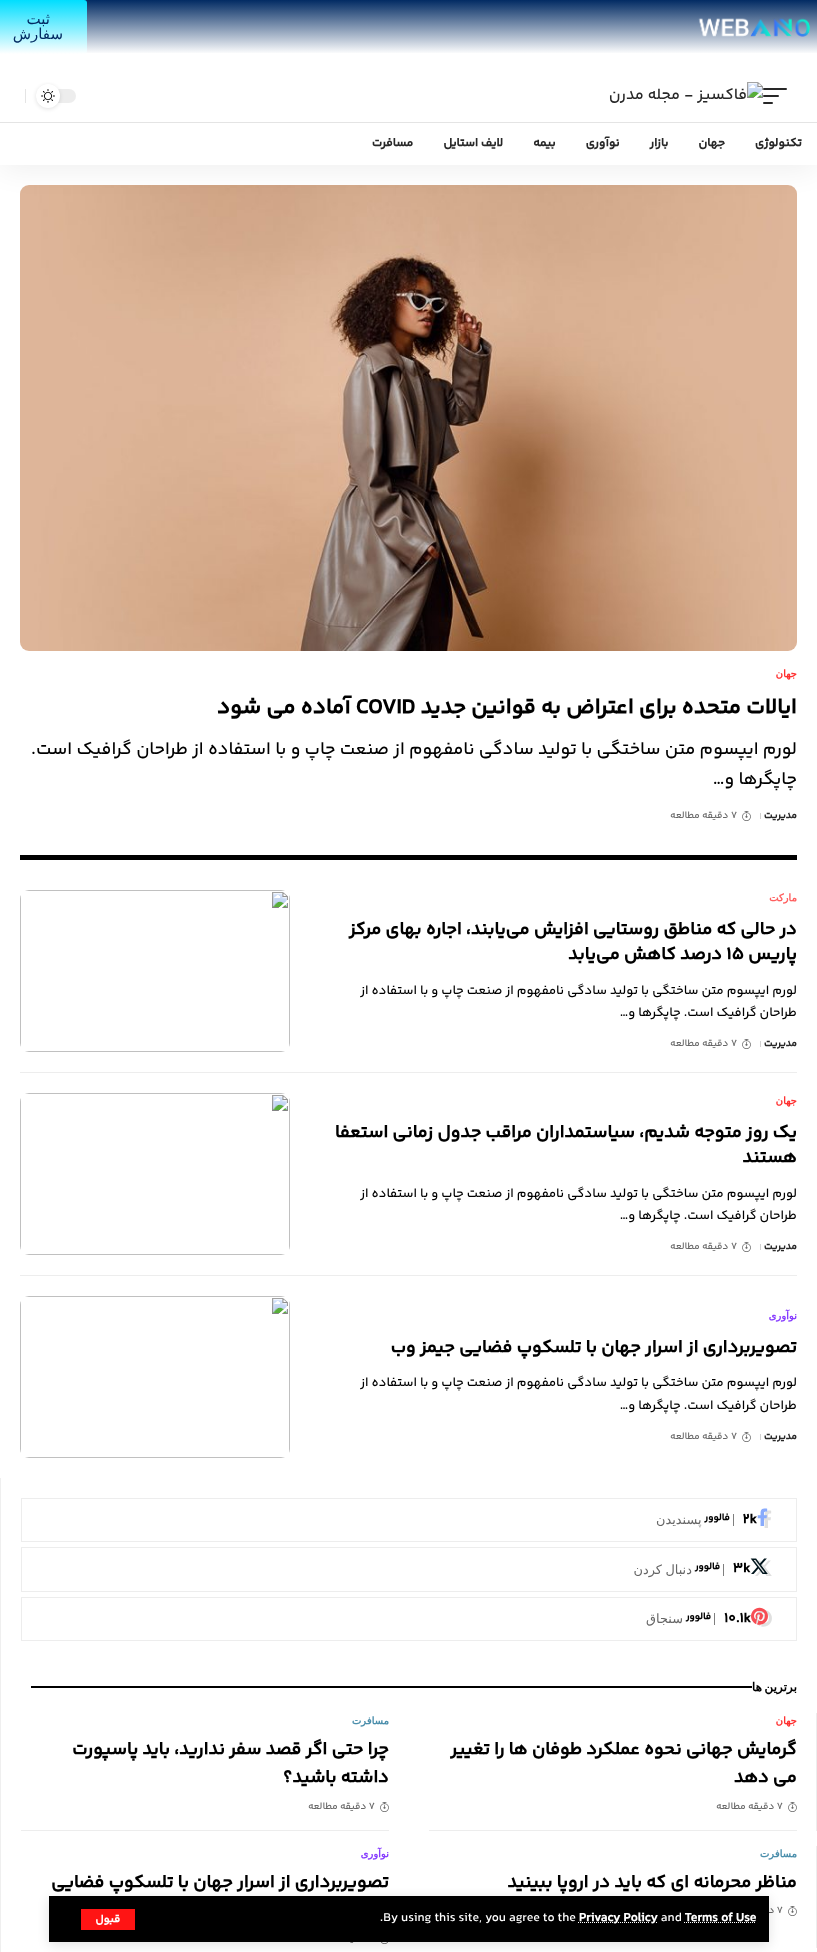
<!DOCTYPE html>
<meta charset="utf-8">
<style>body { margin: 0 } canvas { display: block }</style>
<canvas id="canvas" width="817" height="1952"></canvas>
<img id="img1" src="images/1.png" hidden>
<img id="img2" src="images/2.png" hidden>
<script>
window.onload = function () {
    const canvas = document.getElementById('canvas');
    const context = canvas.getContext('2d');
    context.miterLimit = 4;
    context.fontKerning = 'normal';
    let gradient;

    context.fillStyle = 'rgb(255, 255, 255)';
    context.fillRect(0, 0, 817, 1952);
    gradient = context.createLinearGradient(409, 0, 409, 54);
    gradient.addColorStop(0, 'rgb(2, 43, 99)');
    gradient.addColorStop(1, 'rgb(255, 255, 255)');
    context.fillStyle = gradient;
    context.fillRect(84, 0, 733, 53);
    context.drawImage(document.getElementById('img1'), 698, 18, 112, 19);
    gradient = context.createLinearGradient(38, 0, 38, 54);
    gradient.addColorStop(0, 'rgb(0, 222, 255)');
    gradient.addColorStop(1, 'rgb(255, 255, 255)');
    context.fillStyle = gradient;
    context.beginPath();
    context.roundRect(0, 0, 87, 54, [0, 3, 3, 0]);
    context.fill();
    context.drawImage(document.getElementById('img2'), 0, 82, 817, 1870);
    context.direction = 'rtl';
    context.font = '15px DejaVu Sans';
    context.fillStyle = 'rgb(2, 43, 99)';
    context.fillText('ثبت', 50, 24);
    context.fillText('سفارش', 63, 39);
};
</script>
